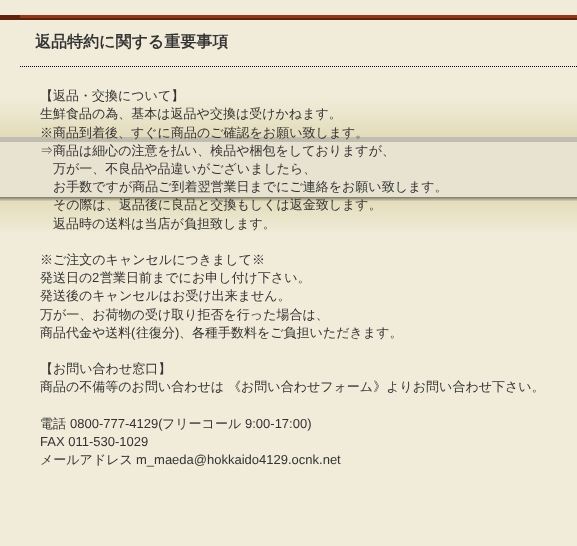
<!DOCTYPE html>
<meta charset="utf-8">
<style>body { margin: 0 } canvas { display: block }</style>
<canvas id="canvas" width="577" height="546"></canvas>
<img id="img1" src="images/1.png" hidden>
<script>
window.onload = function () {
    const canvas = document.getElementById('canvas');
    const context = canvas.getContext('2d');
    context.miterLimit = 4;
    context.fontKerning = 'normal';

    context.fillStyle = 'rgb(240, 236, 217)';
    context.fillRect(0, 0, 577, 546);
    context.drawImage(document.getElementById('img1'), 0, 15, 577, 217);
    context.fillStyle = 'rgb(147, 55, 24)';
    context.fillRect(20, 15, 557, 3);
    context.beginPath();
    context.moveTo(20, 66.5);
    context.lineTo(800, 66.5);
    context.strokeStyle = 'rgb(0, 0, 0)';
    context.setLineDash([1, 1]);
    context.stroke();
    context.font = 'bold 16px WenQuanYi Zen Hei';
    context.fillStyle = 'rgb(51, 51, 51)';
    context.fillText('返品特約に関する重要事項', 35, 47);
    context.font = '500 13px WenQuanYi Zen Hei';
    context.fillText('【返品・交換について】', 40, 100);
    context.fillText('生鮮食品の為、基本は返品や交換は受けかねます。', 40, 118);
    context.fillText('※商品到着後、すぐに商品のご確認をお願い致します。', 40, 137);
    context.fillText('⇒商品は細心の注意を払い、検品や梱包をしておりますが、', 40, 155);
    context.fillText('万が一、不良品や品違いがございましたら、', 53, 173);
    context.fillText('お手数ですが商品ご到着翌営業日までにご連絡をお願い致します。', 53, 191);
    context.fillText('その際は、返品後に良品と交換もしくは返金致します。', 53, 209);
    context.fillText('返品時の送料は当店が負担致します。', 53, 228);
    context.fillText('※ご注文のキャンセルにつきまして※', 40, 264);
    context.fillText('発送日の', 40, 282);
    context.font = '13px Liberation Sans';
    context.fillText('2', 92, 282);
    context.font = '500 13px WenQuanYi Zen Hei';
    context.fillText('営業日前までにお申し付け下さい。', 100, 282);
    context.fillText('発送後のキャンセルはお受け出来ません。', 40, 300);
    context.fillText('万が一、お荷物の受け取り拒否を行った場合は、', 40, 319);
    context.fillText('商品代金や送料', 40, 337);
    context.font = '13px Liberation Sans';
    context.fillText('(', 131, 337);
    context.font = '500 13px WenQuanYi Zen Hei';
    context.fillText('往復分', 136, 337);
    context.font = '13px Liberation Sans';
    context.fillText(')', 175, 337);
    context.font = '500 13px WenQuanYi Zen Hei';
    context.fillText('、各種手数料をご負担いただきます。', 179, 337);
    context.fillText('【お問い合わせ窓口】', 40, 373);
    context.fillText('商品の不備等のお問い合わせは 《お問い合わせフォーム》よりお問い合わせ下さい。', 40, 391);
    context.fillText('電話', 40, 428);
    context.font = '13px Liberation Sans';
    context.fillText('0800-777-4129(', 70, 428);
    context.font = '500 13px WenQuanYi Zen Hei';
    context.fillText('フリーコール', 162, 428);
    context.font = '13px Liberation Sans';
    context.fillText('9:00-17:00)', 245, 428);
    context.fillText('FAX 011-530-1029', 40, 446);
    context.font = '500 13px WenQuanYi Zen Hei';
    context.fillText('メールアドレス', 40, 464);
    context.font = '13px Liberation Sans';
    context.fillText('m_maeda@hokkaido4129.ocnk.net', 136, 464);
};
</script>
